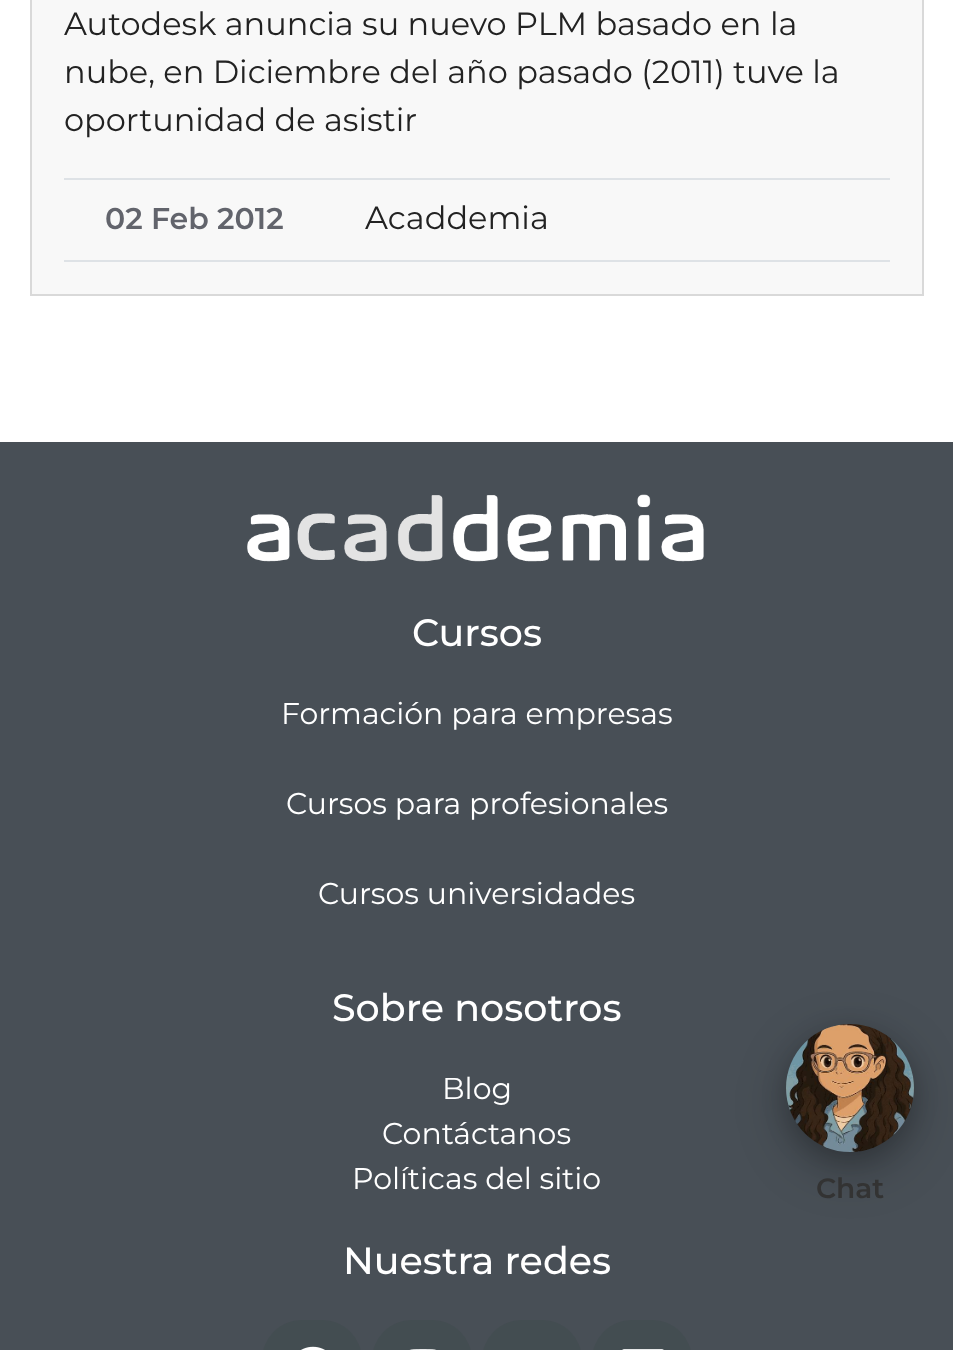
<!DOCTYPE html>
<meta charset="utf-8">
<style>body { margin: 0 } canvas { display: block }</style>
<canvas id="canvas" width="953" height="1350"></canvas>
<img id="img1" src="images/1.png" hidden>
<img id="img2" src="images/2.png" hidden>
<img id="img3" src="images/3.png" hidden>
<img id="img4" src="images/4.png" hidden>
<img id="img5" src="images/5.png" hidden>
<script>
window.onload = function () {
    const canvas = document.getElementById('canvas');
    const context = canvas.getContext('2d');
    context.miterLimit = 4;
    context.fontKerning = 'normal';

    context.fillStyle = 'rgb(255, 255, 255)';
    context.fillRect(0, 0, 953, 1350);
    context.fillStyle = 'rgb(248, 248, 248)';
    context.beginPath();
    context.rect(31, -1, 892, 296);
    context.fill();
    context.strokeStyle = 'rgb(217, 217, 217)';
    context.lineWidth = 2;
    context.stroke();
    context.fillStyle = 'rgb(222, 226, 230)';
    context.fillRect(64, 178, 826, 2);
    context.fillRect(64, 260, 826, 2);
    context.fillStyle = 'rgb(72, 79, 86)';
    context.fillRect(0, 442, 953, 908);
    context.drawImage(document.getElementById('img1'), 247, 494, 457, 68);
    context.fillStyle = 'rgb(67, 77, 81)';
    context.beginPath();
    context.roundRect(262, 1320, 100, 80, 50);
    context.fill();
    context.drawImage(document.getElementById('img2'), 301, 1346, 24, 4);
    context.beginPath();
    context.roundRect(372, 1320, 100, 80, 50);
    context.fill();
    context.drawImage(document.getElementById('img3'), 409, 1349, 28, 1);
    context.beginPath();
    context.roundRect(482, 1320, 100, 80, 50);
    context.fill();
    context.beginPath();
    context.roundRect(592, 1320, 100, 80, 50);
    context.fill();
    context.drawImage(document.getElementById('img4'), 622, 1349, 42, 1);
    context.fillStyle = 'rgba(0, 0, 0, 0.15)';
    context.filter = 'blur(12px)';
    context.beginPath();
    context.roundRect(786, 1032, 128, 128, 64);
    context.fill();
    context.filter = 'none';
    context.fillStyle = 'rgba(0, 0, 0, 0.25)';
    context.filter = 'blur(25px)';
    context.beginPath();
    context.roundRect(786, 1040, 128, 128, 64);
    context.fill();
    context.filter = 'none';
    context.drawImage(document.getElementById('img5'), 786, 1024, 128, 128);
    context.font = '32px Montserrat';
    context.fillStyle = 'rgb(34, 34, 34)';
    context.fillText('Autodesk anuncia su nuevo PLM basado en la', 64, 35);
    context.fillText('nube, en Diciembre del año pasado (2011) tuve la', 64, 83);
    context.fillText('oportunidad de asistir', 64, 131);
    context.font = '600 30px Montserrat';
    context.fillStyle = 'rgb(98, 100, 108)';
    context.fillText('02 Feb 2012', 105, 229);
    context.font = '32px Montserrat';
    context.fillStyle = 'rgb(34, 34, 34)';
    context.fillText('Acaddemia', 365, 229);
    context.font = '500 38px Montserrat';
    context.fillStyle = 'rgb(255, 255, 255)';
    context.fillText('Cursos', 412, 646);
    context.font = '30px Montserrat';
    context.fillText('Formación para empresas', 281, 724);
    context.fillText('Cursos para profesionales', 286, 814);
    context.fillText('Cursos universidades', 318, 904);
    context.font = '500 38px Montserrat';
    context.fillText('Sobre nosotros', 332, 1021);
    context.font = '30px Montserrat';
    context.fillText('Blog', 442, 1099);
    context.fillText('Contáctanos', 382, 1144);
    context.fillText('Políticas del sitio', 352, 1189);
    context.font = '500 38px Montserrat';
    context.fillText('Nuestra redes', 343, 1274);
    context.font = '600 28px Montserrat';
    context.fillStyle = 'rgb(51, 51, 51)';
    context.fillText('Chat', 816, 1198);
};
</script>
